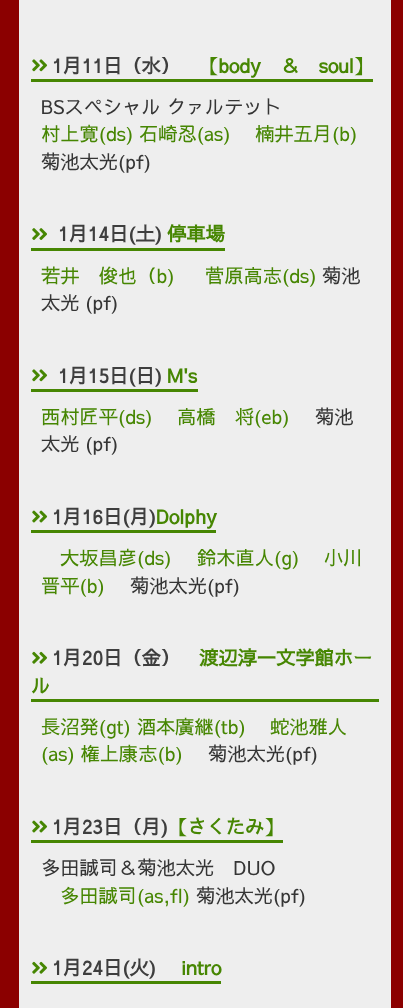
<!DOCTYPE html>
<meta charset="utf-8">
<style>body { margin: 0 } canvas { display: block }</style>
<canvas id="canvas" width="403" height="1008"></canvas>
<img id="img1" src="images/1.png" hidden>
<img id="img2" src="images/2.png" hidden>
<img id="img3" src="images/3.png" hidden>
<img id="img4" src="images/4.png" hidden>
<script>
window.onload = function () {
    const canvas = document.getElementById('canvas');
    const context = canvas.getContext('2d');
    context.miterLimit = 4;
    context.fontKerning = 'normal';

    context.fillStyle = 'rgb(139, 0, 0)';
    context.fillRect(0, 0, 403, 1008);
    context.fillStyle = 'rgb(238, 238, 238)';
    context.fillRect(19, 0, 372, 1008);
    context.fillStyle = 'rgb(70, 134, 2)';
    context.fillRect(31, 79, 342, 3);
    context.drawImage(document.getElementById('img1'), 32, 59, 16, 13);
    context.fillRect(31, 248, 194, 3);
    context.drawImage(document.getElementById('img2'), 32, 228, 15, 12);
    context.fillRect(31, 389, 167, 3);
    context.drawImage(document.getElementById('img1'), 32, 369, 16, 13);
    context.fillRect(31, 530, 185, 3);
    context.drawImage(document.getElementById('img3'), 32, 510, 16, 13);
    context.fillRect(31, 699, 348, 3);
    context.drawImage(document.getElementById('img4'), 32, 651, 16, 13);
    context.fillRect(31, 840, 252, 3);
    context.drawImage(document.getElementById('img3'), 32, 820, 16, 13);
    context.fillRect(31, 981, 190, 3);
    context.drawImage(document.getElementById('img4'), 32, 961, 16, 13);
    context.font = 'bold 19.25px Sawarabi Gothic';
    context.fillStyle = 'rgb(62, 62, 62)';
    context.fillText('1月11日（水）', 52, 73);
    context.fillStyle = 'rgb(70, 134, 2)';
    context.fillText('【body　＆　soul】', 199, 73);
    context.font = '19.25px Sawarabi Gothic';
    context.fillStyle = 'rgb(53, 53, 53)';
    context.fillText('BSスペシャル クァルテット', 41, 114);
    context.fillStyle = 'rgb(70, 134, 2)';
    context.fillText('村上寛(ds) 石崎忍(as)', 41, 141);
    context.fillText('楠井五月(b)', 255, 141);
    context.fillStyle = 'rgb(53, 53, 53)';
    context.fillText('菊池太光(pf)', 41, 169);
    context.font = 'bold 19.25px Sawarabi Gothic';
    context.fillStyle = 'rgb(62, 62, 62)';
    context.fillText('1月14日(土)', 58, 241);
    context.fillStyle = 'rgb(70, 134, 2)';
    context.fillText('停車場', 167, 241);
    context.font = '19.25px Sawarabi Gothic';
    context.fillText('若井　俊也（b)', 41, 283);
    context.fillText('菅原高志(ds)', 205, 283);
    context.fillStyle = 'rgb(53, 53, 53)';
    context.fillText('菊池', 322, 283);
    context.fillText('太光 (pf)', 41, 310);
    context.font = 'bold 19.25px Sawarabi Gothic';
    context.fillStyle = 'rgb(62, 62, 62)';
    context.fillText('1月15日(日)', 58, 383);
    context.fillStyle = 'rgb(70, 134, 2)';
    context.fillText('M\'s', 167, 383);
    context.font = '19.25px Sawarabi Gothic';
    context.fillText('西村匠平(ds)', 41, 424);
    context.fillText('高橋　将(eb)', 177, 424);
    context.fillStyle = 'rgb(53, 53, 53)';
    context.fillText('菊池', 315, 424);
    context.fillText('太光 (pf)', 41, 451);
    context.font = 'bold 19.25px Sawarabi Gothic';
    context.fillStyle = 'rgb(62, 62, 62)';
    context.fillText('1月16日(月)', 52, 524);
    context.fillStyle = 'rgb(70, 134, 2)';
    context.fillText('Dolphy', 156, 524);
    context.font = '19.25px Sawarabi Gothic';
    context.fillText('大坂昌彦(ds)', 60, 565);
    context.fillText('鈴木直人(g)', 197, 565);
    context.fillText('小川', 324, 565);
    context.fillText('晋平(b)', 41, 593);
    context.fillStyle = 'rgb(53, 53, 53)';
    context.fillText('菊池太光(pf)', 130, 593);
    context.font = 'bold 19.25px Sawarabi Gothic';
    context.fillStyle = 'rgb(62, 62, 62)';
    context.fillText('1月20日（金）', 52, 665);
    context.fillStyle = 'rgb(70, 134, 2)';
    context.fillText('渡辺淳一文学館ホー', 199, 665);
    context.fillText('ル', 31, 693);
    context.font = '19.25px Sawarabi Gothic';
    context.fillText('長沼発(gt) 酒本廣継(tb)', 41, 734);
    context.fillText('蛇池雅人', 270, 734);
    context.fillText('(as) 権上康志(b)', 41, 761);
    context.fillStyle = 'rgb(53, 53, 53)';
    context.fillText('菊池太光(pf)', 208, 761);
    context.font = 'bold 19.25px Sawarabi Gothic';
    context.fillStyle = 'rgb(62, 62, 62)';
    context.fillText('1月23日（月)', 52, 834);
    context.fillStyle = 'rgb(70, 134, 2)';
    context.fillText('【さくたみ】', 168, 834);
    context.font = '19.25px Sawarabi Gothic';
    context.fillStyle = 'rgb(53, 53, 53)';
    context.fillText('多田誠司＆菊池太光　DUO', 41, 875);
    context.fillStyle = 'rgb(70, 134, 2)';
    context.fillText('多田誠司(as,fl)', 60, 903);
    context.fillStyle = 'rgb(53, 53, 53)';
    context.fillText('菊池太光(pf)', 196, 903);
    context.font = 'bold 19.25px Sawarabi Gothic';
    context.fillStyle = 'rgb(62, 62, 62)';
    context.fillText('1月24日(火)', 52, 975);
    context.fillStyle = 'rgb(70, 134, 2)';
    context.fillText('intro', 181, 975);
};
</script>
